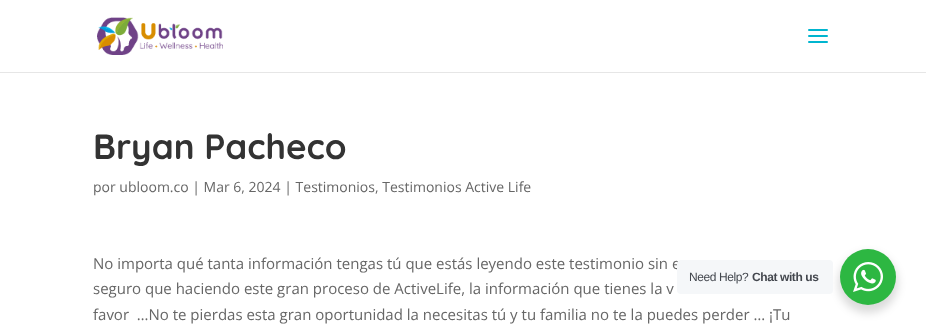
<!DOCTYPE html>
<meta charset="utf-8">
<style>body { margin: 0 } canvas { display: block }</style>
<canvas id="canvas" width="926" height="335"></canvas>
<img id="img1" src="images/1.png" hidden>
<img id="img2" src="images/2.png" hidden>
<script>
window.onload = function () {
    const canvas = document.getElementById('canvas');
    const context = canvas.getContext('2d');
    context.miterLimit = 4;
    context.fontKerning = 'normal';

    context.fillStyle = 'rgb(255, 255, 255)';
    context.fillRect(0, 0, 926, 335);
    context.fillStyle = 'rgb(230, 230, 230)';
    context.fillRect(0, 72, 926, 1);
    context.drawImage(document.getElementById('img1'), 97, 17, 126, 38);
    context.fillStyle = 'rgb(0, 181, 207)';
    context.beginPath();
    context.roundRect(808, 35, 20, 2, 1);
    context.fill();
    context.beginPath();
    context.roundRect(808, 29, 20, 2, 1);
    context.fill();
    context.beginPath();
    context.roundRect(808, 41, 20, 2, 1);
    context.fill();
    context.fillStyle = 'rgba(0, 0, 0, 0.14)';
    context.filter = 'blur(4px)';
    context.beginPath();
    context.roundRect(838, 253, 60, 60, 30);
    context.fill();
    context.filter = 'none';
    context.fillStyle = 'rgb(45, 183, 66)';
    context.beginPath();
    context.arc(868, 277, 28, 0, 2 * Math.PI);
    context.fill();
    context.drawImage(document.getElementById('img2'), 853, 262, 30, 30);
    context.font = '300 35px Quicksand';
    context.fillStyle = 'rgb(51, 51, 51)';
    context.fillText('Bryan Pacheco', 93, 159);
    context.font = '14px Open Sans';
    context.fillStyle = 'rgb(102, 102, 102)';
    context.fillText('por ubloom.co | Mar 6, 2024 | Testimonios, Testimonios Active Life', 93, 192);
    context.font = '15px Open Sans';
    context.fillText('No importa qué tanta información tengas tú que estás leyendo este testimonio sin e', 93, 269);
    context.fillText('seguro que haciendo este gran proceso de ActiveLife, la información que tienes la v', 93, 294);
    context.fillText('favor  …No te pierdas esta gran oportunidad la necesitas tú y tu familia no te la puedes perder … ¡Tu', 93, 320);
    context.fillStyle = 'rgb(245, 247, 249)';
    context.beginPath();
    context.roundRect(677, 260, 156, 34, 4);
    context.fill();
    context.letterSpacing = '-0.4px';
    context.font = '12px Liberation Sans';
    context.fillStyle = 'rgb(67, 71, 78)';
    context.fillText('Need Help?', 689, 281);
    context.font = 'bold 12px Liberation Sans';
    context.fillText('Chat with us', 752, 281);
};
</script>
